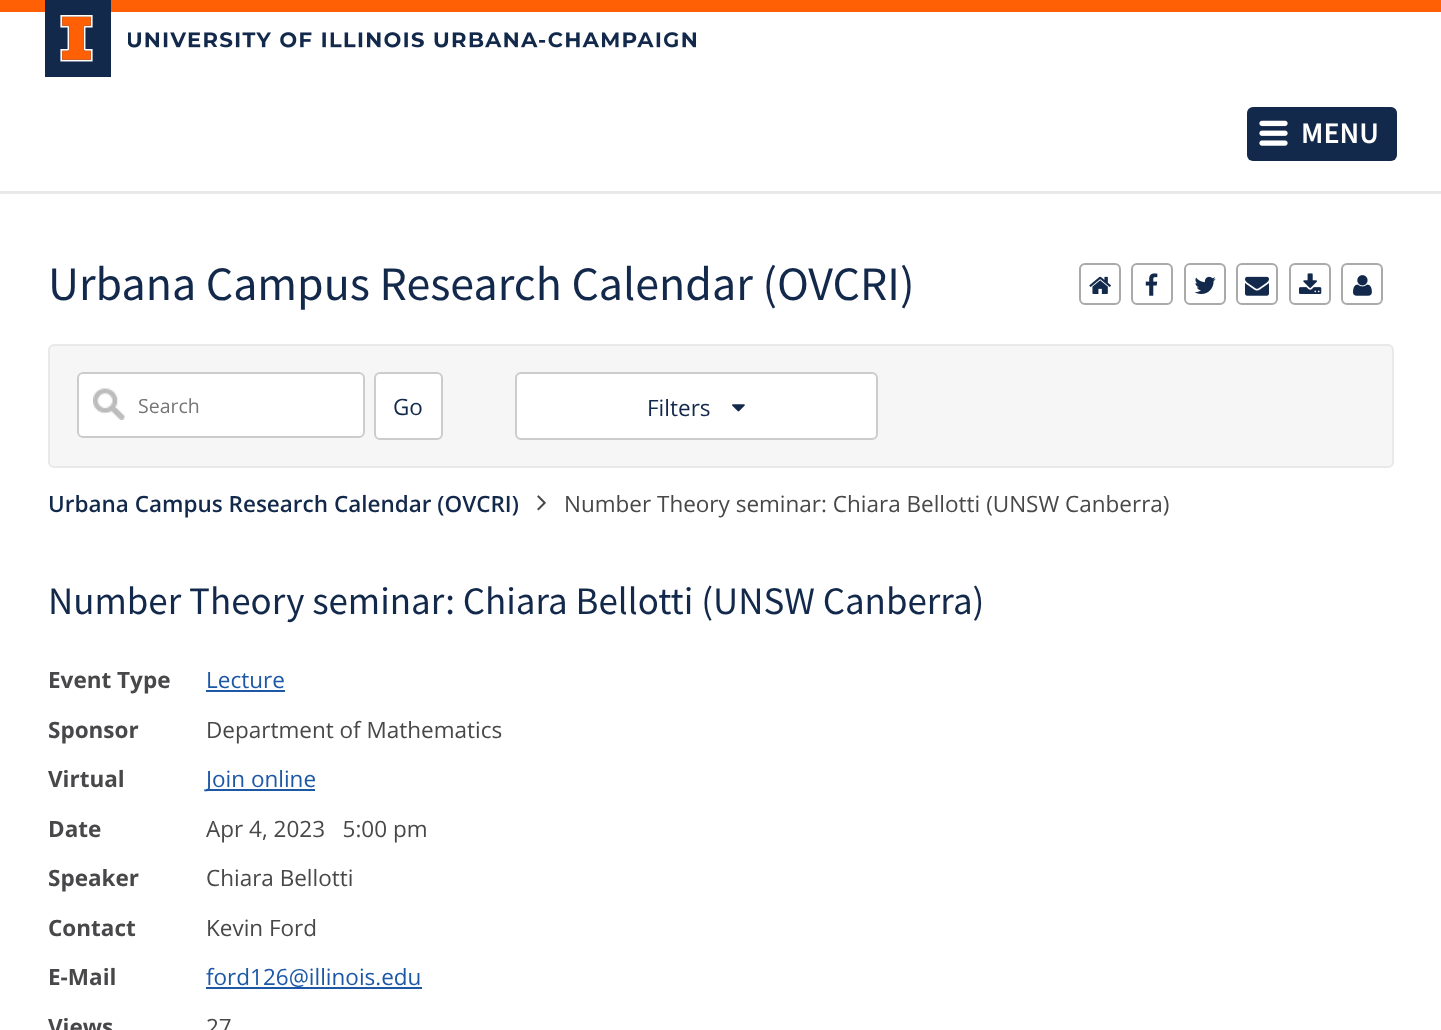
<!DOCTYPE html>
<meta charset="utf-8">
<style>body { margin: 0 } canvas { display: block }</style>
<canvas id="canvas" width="1441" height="1030"></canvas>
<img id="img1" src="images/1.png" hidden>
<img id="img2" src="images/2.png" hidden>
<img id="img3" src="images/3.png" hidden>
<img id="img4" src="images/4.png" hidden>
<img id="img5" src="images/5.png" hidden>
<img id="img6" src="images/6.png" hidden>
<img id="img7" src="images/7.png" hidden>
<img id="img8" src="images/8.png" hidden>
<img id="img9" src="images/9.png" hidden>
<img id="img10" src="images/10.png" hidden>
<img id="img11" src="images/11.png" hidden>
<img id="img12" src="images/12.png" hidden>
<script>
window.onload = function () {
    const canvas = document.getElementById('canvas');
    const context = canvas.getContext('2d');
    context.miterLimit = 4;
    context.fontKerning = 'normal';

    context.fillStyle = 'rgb(255, 255, 255)';
    context.fillRect(0, 0, 1441, 1030);
    context.fillStyle = 'rgb(232, 233, 235)';
    context.fillRect(0, 191, 1441, 3);
    context.fillStyle = 'rgb(255, 95, 5)';
    context.fillRect(0, 0, 1441, 12);
    context.fillStyle = 'rgb(19, 41, 75)';
    context.fillRect(45, 0, 66, 77);
    context.drawImage(document.getElementById('img1'), 60, 15, 33, 47);
    context.drawImage(document.getElementById('img2'), 128, 32, 568, 16);
    context.beginPath();
    context.roundRect(1247, 107, 150, 54, 6);
    context.fill();
    context.drawImage(document.getElementById('img3'), 1259, 120, 29, 26);
    context.beginPath();
    context.roundRect(1080, 264, 40, 40, 5);
    context.strokeStyle = 'rgb(170, 170, 170)';
    context.lineWidth = 2;
    context.stroke();
    context.drawImage(document.getElementById('img4'), 1089, 276, 22, 18);
    context.beginPath();
    context.roundRect(1132, 264, 40, 40, 5);
    context.stroke();
    context.drawImage(document.getElementById('img5'), 1145, 273, 13, 23);
    context.beginPath();
    context.roundRect(1185, 264, 40, 40, 5);
    context.stroke();
    context.drawImage(document.getElementById('img6'), 1194, 276, 22, 18);
    context.beginPath();
    context.roundRect(1237, 264, 40, 40, 5);
    context.stroke();
    context.drawImage(document.getElementById('img7'), 1245, 276, 24, 20);
    context.beginPath();
    context.roundRect(1290, 264, 40, 40, 5);
    context.stroke();
    context.drawImage(document.getElementById('img8'), 1299, 273, 23, 21);
    context.beginPath();
    context.roundRect(1342, 264, 40, 40, 5);
    context.stroke();
    context.drawImage(document.getElementById('img9'), 1353, 275, 19, 21);
    context.fillStyle = 'rgb(246, 246, 246)';
    context.beginPath();
    context.roundRect(49, 345, 1344, 122, 5);
    context.fill();
    context.strokeStyle = 'rgb(233, 233, 233)';
    context.stroke();
    context.fillStyle = 'rgb(255, 255, 255)';
    context.beginPath();
    context.roundRect(77, 372, 288, 66, 6);
    context.fill();
    context.drawImage(document.getElementById('img10'), 93, 388, 32, 32);
    context.beginPath();
    context.roundRect(78, 373, 286, 64, 5);
    context.strokeStyle = 'rgb(204, 204, 204)';
    context.stroke();
    context.beginPath();
    context.roundRect(375, 373, 67, 66, 5);
    context.fill();
    context.stroke();
    context.beginPath();
    context.roundRect(516, 373, 361, 66, 5);
    context.fill();
    context.stroke();
    context.drawImage(document.getElementById('img11'), 732, 404, 13, 8);
    context.drawImage(document.getElementById('img12'), 537, 495, 9, 16);
    context.fillStyle = 'rgb(29, 88, 167)';
    context.fillRect(206, 690, 79, 2);
    context.fillRect(206, 789, 109, 2);
    context.fillRect(206, 987, 216, 2);
    context.font = '600 30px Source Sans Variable';
    context.fillStyle = 'rgb(255, 255, 255)';
    context.fillText('MENU', 1301, 143);
    context.font = '48px Source Sans Pro';
    context.fillStyle = 'rgb(19, 41, 75)';
    context.fillText('Urbana Campus Research Calendar (OVCRI)', 48, 300);
    context.font = '19.5px Open Sans';
    context.fillStyle = 'rgb(117, 117, 117)';
    context.fillText('Search', 138, 413);
    context.font = '22.5px Open Sans';
    context.fillStyle = 'rgb(19, 41, 75)';
    context.fillText('Go', 393, 415);
    context.fillText('Filters', 647, 416);
    context.font = '600 22.5px Open Sans';
    context.fillText('Urbana Campus Research Calendar (OVCRI)', 48, 512);
    context.font = '22.5px Open Sans';
    context.fillStyle = 'rgb(72, 72, 74)';
    context.fillText('Number Theory seminar: Chiara Bellotti (UNSW Canberra)', 564, 512);
    context.font = '39px Source Sans Pro';
    context.fillStyle = 'rgb(19, 41, 75)';
    context.fillText('Number Theory seminar: Chiara Bellotti (UNSW Canberra)', 48, 614);
    context.font = 'bold 22.5px Open Sans';
    context.fillStyle = 'rgb(72, 72, 74)';
    context.fillText('Event Type', 48, 688);
    context.font = '22.5px Open Sans';
    context.fillStyle = 'rgb(29, 88, 167)';
    context.fillText('Lecture', 206, 688);
    context.font = 'bold 22.5px Open Sans';
    context.fillStyle = 'rgb(72, 72, 74)';
    context.fillText('Sponsor', 48, 738);
    context.font = '22.5px Open Sans';
    context.fillText('Department of Mathematics', 206, 738);
    context.font = 'bold 22.5px Open Sans';
    context.fillText('Virtual', 48, 787);
    context.font = '22.5px Open Sans';
    context.fillStyle = 'rgb(29, 88, 167)';
    context.fillText('Join online', 206, 787);
    context.font = 'bold 22.5px Open Sans';
    context.fillStyle = 'rgb(72, 72, 74)';
    context.fillText('Date', 48, 837);
    context.font = '22.5px Open Sans';
    context.fillText('Apr 4, 2023   5:00 pm', 206, 837);
    context.font = 'bold 22.5px Open Sans';
    context.fillText('Speaker', 48, 886);
    context.font = '22.5px Open Sans';
    context.fillText('Chiara Bellotti', 206, 886);
    context.font = 'bold 22.5px Open Sans';
    context.fillText('Contact', 48, 936);
    context.font = '22.5px Open Sans';
    context.fillText('Kevin Ford', 206, 936);
    context.font = 'bold 22.5px Open Sans';
    context.fillText('E-Mail', 48, 985);
    context.font = '22.5px Open Sans';
    context.fillStyle = 'rgb(29, 88, 167)';
    context.fillText('ford126@illinois.edu', 206, 985);
    context.font = 'bold 22.5px Open Sans';
    context.fillStyle = 'rgb(72, 72, 74)';
    context.fillText('Views', 48, 1035);
    context.font = '22.5px Open Sans';
    context.fillText('27', 206, 1035);
};
</script>
